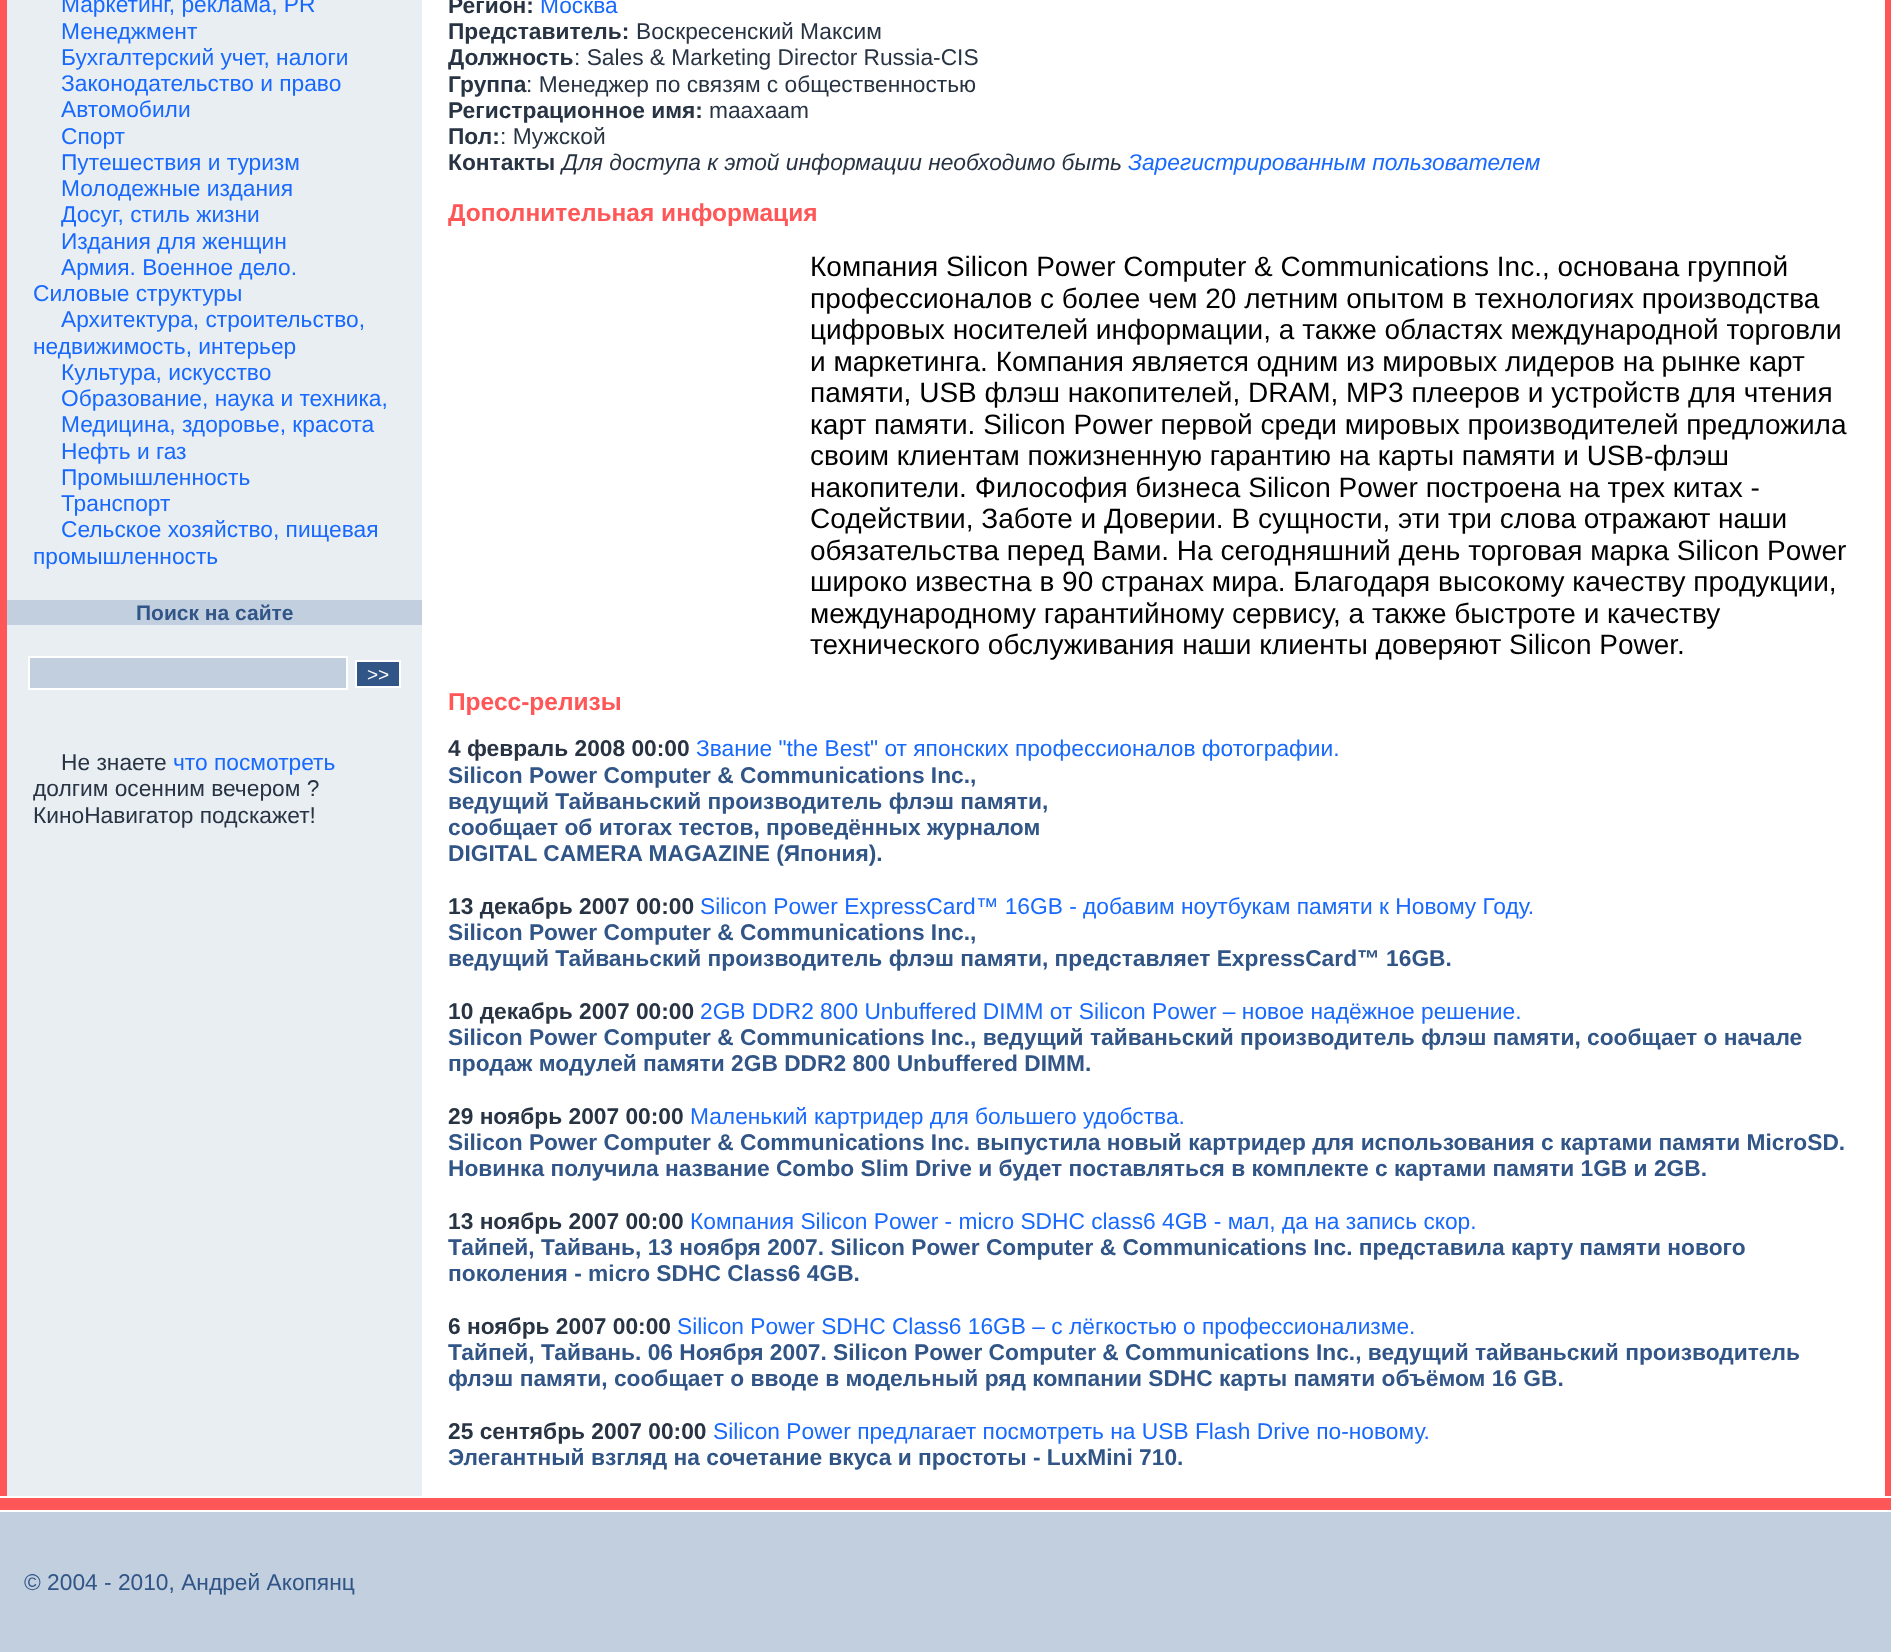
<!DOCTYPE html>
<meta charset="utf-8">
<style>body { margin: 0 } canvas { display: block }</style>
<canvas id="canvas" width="1891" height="1652"></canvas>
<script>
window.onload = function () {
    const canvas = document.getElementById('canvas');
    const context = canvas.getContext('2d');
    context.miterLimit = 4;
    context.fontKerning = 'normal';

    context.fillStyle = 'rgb(255, 255, 255)';
    context.fillRect(0, 0, 1891, 1652);
    context.fillStyle = 'rgb(255, 87, 87)';
    context.fillRect(0, 0, 7, 1496);
    context.fillStyle = 'rgb(233, 238, 243)';
    context.fillRect(7, 0, 415, 1496);
    context.fillStyle = 'rgb(193, 207, 223)';
    context.fillRect(7, 600, 415, 25);
    context.beginPath();
    context.rect(29, 657, 318, 32);
    context.fill();
    context.strokeStyle = 'rgb(255, 255, 255)';
    context.lineWidth = 2;
    context.stroke();
    context.fillStyle = 'rgb(49, 85, 135)';
    context.beginPath();
    context.rect(356, 661, 44, 26);
    context.fill();
    context.stroke();
    context.fillStyle = 'rgb(255, 87, 87)';
    context.fillRect(1885, 0, 6, 1496);
    context.fillRect(0, 1498, 1891, 12);
    context.fillStyle = 'rgb(193, 207, 223)';
    context.fillRect(0, 1512, 1891, 140);
    context.font = '22.75px Liberation Sans';
    context.fillStyle = 'rgb(24, 105, 253)';
    context.fillText('Маркетинг, реклама, PR', 61, 12);
    context.fillText('Менеджмент', 61, 39);
    context.fillText('Бухгалтерский учет, налоги', 61, 65);
    context.fillText('Законодательство и право', 61, 91);
    context.fillText('Автомобили', 61, 117);
    context.fillText('Спорт', 61, 144);
    context.fillText('Путешествия и туризм', 61, 170);
    context.fillText('Молодежные издания', 61, 196);
    context.fillText('Досуг, стиль жизни', 61, 222);
    context.fillText('Издания для женщин', 61, 249);
    context.fillText('Армия. Военное дело.', 61, 275);
    context.fillText('Силовые структуры', 33, 301);
    context.fillText('Архитектура, строительство,', 61, 327);
    context.fillText('недвижимость, интерьер', 33, 354);
    context.fillText('Культура, искусство', 61, 380);
    context.fillText('Образование, наука и техника,', 61, 406);
    context.fillText('Медицина, здоровье, красота', 61, 432);
    context.fillText('Нефть и газ', 61, 459);
    context.fillText('Промышленность', 61, 485);
    context.fillText('Транспорт', 61, 511);
    context.fillText('Сельское хозяйство, пищевая', 61, 537);
    context.fillText('промышленность', 33, 564);
    context.font = 'bold 21px Liberation Sans';
    context.fillStyle = 'rgb(49, 85, 135)';
    context.fillText('Поиск на сайте', 136, 620);
    context.font = '19px Liberation Sans';
    context.fillStyle = 'rgb(255, 255, 255)';
    context.fillText('>>', 367, 681);
    context.font = '22.75px Liberation Sans';
    context.fillStyle = 'rgb(40, 52, 67)';
    context.fillText('Не знаете', 61, 770);
    context.fillStyle = 'rgb(24, 105, 253)';
    context.fillText('что посмотреть', 173, 770);
    context.fillStyle = 'rgb(40, 52, 67)';
    context.fillText('долгим осенним вечером ?', 33, 796);
    context.fillText('КиноНавигатор подскажет!', 33, 823);
    context.font = 'bold 22.75px Liberation Sans';
    context.fillText('Регион:', 448, 13);
    context.font = '22.75px Liberation Sans';
    context.fillStyle = 'rgb(24, 105, 253)';
    context.fillText('Москва', 540, 13);
    context.font = 'bold 22.75px Liberation Sans';
    context.fillStyle = 'rgb(40, 52, 67)';
    context.fillText('Представитель:', 448, 39);
    context.font = '22.75px Liberation Sans';
    context.fillText('Воскресенский Максим', 636, 39);
    context.font = 'bold 22.75px Liberation Sans';
    context.fillText('Должность', 448, 65);
    context.font = '22.75px Liberation Sans';
    context.fillText(': Sales & Marketing Director Russia-CIS', 574, 65);
    context.font = 'bold 22.75px Liberation Sans';
    context.fillText('Группа', 448, 92);
    context.font = '22.75px Liberation Sans';
    context.fillText(': Менеджер по связям с общественностью', 526, 92);
    context.font = 'bold 22.75px Liberation Sans';
    context.fillText('Регистрационное имя:', 448, 118);
    context.font = '22.75px Liberation Sans';
    context.fillText('maaxaam', 709, 118);
    context.font = 'bold 22.75px Liberation Sans';
    context.fillText('Пол:', 448, 144);
    context.font = '22.75px Liberation Sans';
    context.fillText(': Мужской', 500, 144);
    context.font = 'bold 22.75px Liberation Sans';
    context.fillText('Контакты', 448, 170);
    context.font = 'italic 22.75px Liberation Sans';
    context.fillText('Для доступа к этой информации необходимо быть', 562, 170);
    context.fillStyle = 'rgb(24, 105, 253)';
    context.fillText('Зарегистрированным пользователем', 1128, 170);
    context.font = 'bold 24.5px Liberation Sans';
    context.fillStyle = 'rgb(255, 87, 87)';
    context.fillText('Дополнительная информация', 448, 221);
    context.font = '28px Liberation Sans';
    context.fillStyle = 'rgb(0, 0, 0)';
    context.fillText('Компания Silicon Power Computer & Communications Inc., основана группой', 810, 276);
    context.fillText('профессионалов с более чем 20 летним опытом в технологиях производства', 810, 308);
    context.fillText('цифровых носителей информации, а также областях международной торговли', 810, 339);
    context.fillText('и маркетинга. Компания является одним из мировых лидеров на рынке карт', 810, 371);
    context.fillText('памяти, USB флэш накопителей, DRAM, MP3 плееров и устройств для чтения', 810, 402);
    context.fillText('карт памяти. Silicon Power первой среди мировых производителей предложила', 810, 434);
    context.fillText('своим клиентам пожизненную гарантию на карты памяти и USB-флэш', 810, 465);
    context.fillText('накопители. Философия бизнеса Silicon Power построена на трех китах -', 810, 497);
    context.fillText('Содействии, Заботе и Доверии. В сущности, эти три слова отражают наши', 810, 528);
    context.fillText('обязательства перед Вами. На сегодняшний день торговая марка Silicon Power', 810, 560);
    context.fillText('широко известна в 90 странах мира. Благодаря высокому качеству продукции,', 810, 591);
    context.fillText('международному гарантийному сервису, а также быстроте и качеству', 810, 623);
    context.fillText('технического обслуживания наши клиенты доверяют Silicon Power.', 810, 654);
    context.font = 'bold 24.5px Liberation Sans';
    context.fillStyle = 'rgb(255, 87, 87)';
    context.fillText('Пресс-релизы', 448, 710);
    context.font = 'bold 22.75px Liberation Sans';
    context.fillStyle = 'rgb(40, 52, 67)';
    context.fillText('4 февраль 2008 00:00', 448, 756);
    context.font = '22.75px Liberation Sans';
    context.fillStyle = 'rgb(24, 105, 253)';
    context.fillText('Звание "the Best" от японских профессионалов фотографии.', 696, 756);
    context.font = 'bold 22.75px Liberation Sans';
    context.fillStyle = 'rgb(49, 85, 135)';
    context.fillText('Silicon Power Computer & Communications Inc.,', 448, 783);
    context.fillText('ведущий Тайваньский производитель флэш памяти,', 448, 809);
    context.fillText('сообщает об итогах тестов, проведённых журналом', 448, 835);
    context.fillText('DIGITAL CAMERA MAGAZINE (Япония).', 448, 861);
    context.fillStyle = 'rgb(40, 52, 67)';
    context.fillText('13 декабрь 2007 00:00', 448, 914);
    context.font = '22.75px Liberation Sans';
    context.fillStyle = 'rgb(24, 105, 253)';
    context.fillText('Silicon Power ExpressCard™ 16GB - добавим ноутбукам памяти к Новому Году.', 700, 914);
    context.font = 'bold 22.75px Liberation Sans';
    context.fillStyle = 'rgb(49, 85, 135)';
    context.fillText('Silicon Power Computer & Communications Inc.,', 448, 940);
    context.fillText('ведущий Тайваньский производитель флэш памяти, представляет ExpressCard™ 16GB.', 448, 966);
    context.fillStyle = 'rgb(40, 52, 67)';
    context.fillText('10 декабрь 2007 00:00', 448, 1019);
    context.font = '22.75px Liberation Sans';
    context.fillStyle = 'rgb(24, 105, 253)';
    context.fillText('2GB DDR2 800 Unbuffered DIMM от Silicon Power – новое надёжное решение.', 700, 1019);
    context.font = 'bold 22.75px Liberation Sans';
    context.fillStyle = 'rgb(49, 85, 135)';
    context.fillText('Silicon Power Computer & Communications Inc., ведущий тайваньский производитель флэш памяти, сообщает о начале', 448, 1045);
    context.fillText('продаж модулей памяти 2GB DDR2 800 Unbuffered DIMM.', 448, 1071);
    context.fillStyle = 'rgb(40, 52, 67)';
    context.fillText('29 ноябрь 2007 00:00', 448, 1124);
    context.font = '22.75px Liberation Sans';
    context.fillStyle = 'rgb(24, 105, 253)';
    context.fillText('Маленький картридер для большего удобства.', 690, 1124);
    context.font = 'bold 22.75px Liberation Sans';
    context.fillStyle = 'rgb(49, 85, 135)';
    context.fillText('Silicon Power Computer & Communications Inc. выпустила новый картридер для использования с картами памяти MicroSD.', 448, 1150);
    context.fillText('Новинка получила название Combo Slim Drive и будет поставляться в комплекте с картами памяти 1GB и 2GB.', 448, 1176);
    context.fillStyle = 'rgb(40, 52, 67)';
    context.fillText('13 ноябрь 2007 00:00', 448, 1229);
    context.font = '22.75px Liberation Sans';
    context.fillStyle = 'rgb(24, 105, 253)';
    context.fillText('Компания Silicon Power - micro SDHC class6 4GB - мал, да на запись скор.', 690, 1229);
    context.font = 'bold 22.75px Liberation Sans';
    context.fillStyle = 'rgb(49, 85, 135)';
    context.fillText('Тайпей, Тайвань, 13 ноября 2007. Silicon Power Computer & Communications Inc. представила карту памяти нового', 448, 1255);
    context.fillText('поколения - micro SDHC Class6 4GB.', 448, 1281);
    context.fillStyle = 'rgb(40, 52, 67)';
    context.fillText('6 ноябрь 2007 00:00', 448, 1334);
    context.font = '22.75px Liberation Sans';
    context.fillStyle = 'rgb(24, 105, 253)';
    context.fillText('Silicon Power SDHC Class6 16GB – с лёгкостью о профессионализме.', 677, 1334);
    context.font = 'bold 22.75px Liberation Sans';
    context.fillStyle = 'rgb(49, 85, 135)';
    context.fillText('Тайпей, Тайвань. 06 Ноября 2007. Silicon Power Computer & Communications Inc., ведущий тайваньский производитель', 448, 1360);
    context.fillText('флэш памяти, сообщает о вводе в модельный ряд компании SDHC карты памяти объёмом 16 GB.', 448, 1386);
    context.fillStyle = 'rgb(40, 52, 67)';
    context.fillText('25 сентябрь 2007 00:00', 448, 1439);
    context.font = '22.75px Liberation Sans';
    context.fillStyle = 'rgb(24, 105, 253)';
    context.fillText('Silicon Power предлагает посмотреть на USB Flash Drive по-новому.', 713, 1439);
    context.font = 'bold 22.75px Liberation Sans';
    context.fillStyle = 'rgb(49, 85, 135)';
    context.fillText('Элегантный взгляд на сочетание вкуса и простоты - LuxMini 710.', 448, 1465);
    context.font = '22.75px Liberation Sans';
    context.fillText('© 2004 - 2010, Андрей Акопянц', 24, 1590);
};
</script>
